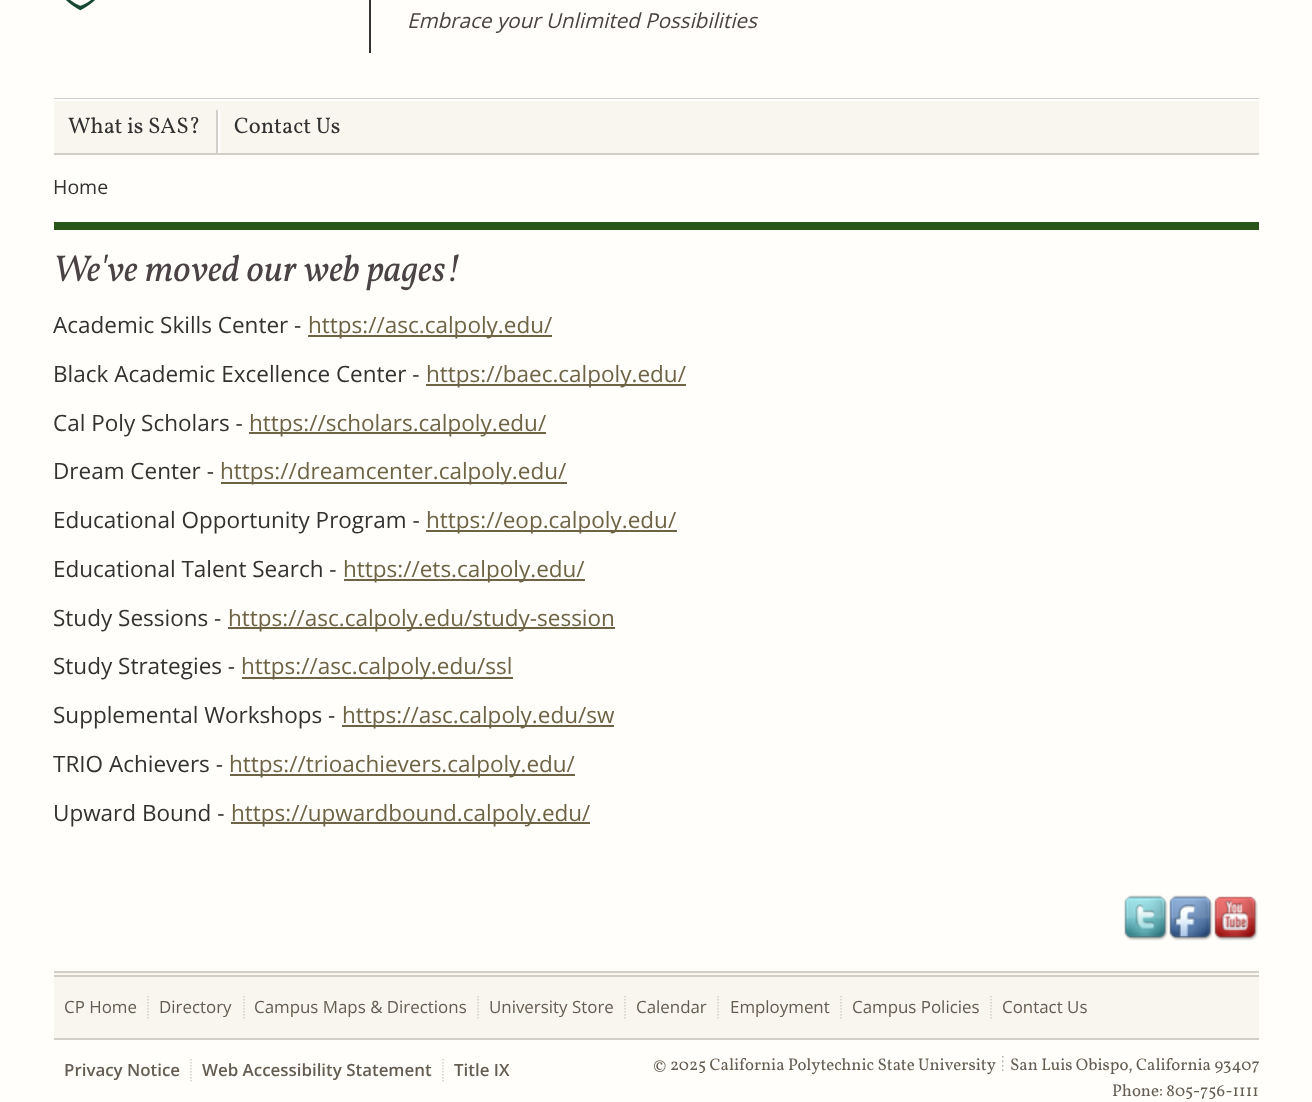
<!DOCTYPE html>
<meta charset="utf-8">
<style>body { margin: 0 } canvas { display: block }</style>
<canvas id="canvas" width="1312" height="1102"></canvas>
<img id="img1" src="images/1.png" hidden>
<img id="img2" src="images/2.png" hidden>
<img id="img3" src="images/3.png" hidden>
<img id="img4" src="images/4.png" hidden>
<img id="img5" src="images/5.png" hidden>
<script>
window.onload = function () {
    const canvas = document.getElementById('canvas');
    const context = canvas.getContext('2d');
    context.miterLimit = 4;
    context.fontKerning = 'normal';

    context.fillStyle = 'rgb(255, 254, 250)';
    context.fillRect(0, 0, 1312, 1102);
    context.drawImage(document.getElementById('img1'), 66, 0, 29, 11);
    context.fillStyle = 'rgb(50, 50, 50)';
    context.fillRect(369, 0, 2, 53);
    context.fillStyle = 'rgb(249, 246, 239)';
    context.fillRect(54, 101, 1205, 52);
    context.fillStyle = 'rgb(209, 207, 199)';
    context.fillRect(54, 98, 1205, 1);
    context.fillRect(54, 153, 1205, 2);
    context.fillStyle = 'rgb(255, 255, 255)';
    context.fillRect(54, 99, 1205, 2);
    context.fillStyle = 'rgb(209, 207, 199)';
    context.fillRect(216, 110, 2, 43);
    context.fillStyle = 'rgb(255, 255, 255)';
    context.fillRect(218, 110, 2, 43);
    context.fillStyle = 'rgb(41, 85, 26)';
    context.fillRect(54, 222, 1205, 8);
    context.fillStyle = 'rgb(111, 99, 69)';
    context.fillRect(308, 335, 244, 2);
    context.fillRect(426, 384, 260, 2);
    context.fillRect(249, 432, 297, 2);
    context.fillRect(221, 482, 346, 2);
    context.fillRect(426, 530, 251, 2);
    context.fillRect(344, 579, 241, 2);
    context.fillRect(228, 627, 387, 2);
    context.fillRect(242, 677, 271, 2);
    context.fillRect(342, 725, 272, 2);
    context.fillRect(230, 774, 345, 2);
    context.fillRect(231, 822, 359, 2);
    context.drawImage(document.getElementById('img2'), 1124, 895, 44, 46);
    context.drawImage(document.getElementById('img3'), 1169, 895, 44, 46);
    context.drawImage(document.getElementById('img4'), 1214, 896, 44, 45);
    context.fillStyle = 'rgb(249, 246, 239)';
    context.fillRect(54, 973, 1205, 65);
    context.fillStyle = 'rgb(209, 207, 199)';
    context.fillRect(54, 971, 1205, 2);
    context.fillRect(54, 975, 1205, 2);
    context.fillRect(54, 1038, 1205, 2);
    context.beginPath();
    context.moveTo(148, 996);
    context.lineTo(148, 1018.5);
    context.strokeStyle = 'rgb(209, 207, 199)';
    context.lineWidth = 1.5;
    context.setLineDash([1.5, 1.5]);
    context.stroke();
    context.beginPath();
    context.moveTo(244, 996);
    context.lineTo(244, 1018.5);
    context.stroke();
    context.beginPath();
    context.moveTo(478, 996);
    context.lineTo(478, 1018.5);
    context.stroke();
    context.beginPath();
    context.moveTo(625, 996);
    context.lineTo(625, 1018.5);
    context.stroke();
    context.beginPath();
    context.moveTo(718, 996);
    context.lineTo(718, 1018.5);
    context.stroke();
    context.beginPath();
    context.moveTo(841, 996);
    context.lineTo(841, 1018.5);
    context.stroke();
    context.beginPath();
    context.moveTo(991, 996);
    context.lineTo(991, 1018.5);
    context.stroke();
    context.beginPath();
    context.moveTo(191, 1059);
    context.lineTo(191, 1081.5);
    context.stroke();
    context.beginPath();
    context.moveTo(443, 1059);
    context.lineTo(443, 1081.5);
    context.stroke();
    context.drawImage(document.getElementById('img5'), 1002, 1056, 2, 15);
    context.font = 'italic 20.6px Open Sans';
    context.fillStyle = 'rgb(74, 66, 68)';
    context.fillText('Embrace your Unlimited Possibilities', 407, 28);
    context.font = '22.5px Vollkorn';
    context.fillStyle = 'rgb(50, 50, 50)';
    context.fillText('What is SAS?', 68, 133);
    context.fillText('Contact Us', 234, 133);
    context.font = '19.5px Open Sans';
    context.fillText('Home', 53, 194);
    context.font = 'italic 37.5px Vollkorn';
    context.fillStyle = 'rgb(74, 66, 68)';
    context.fillText('We\'ve moved our web pages!', 53, 281);
    context.font = '22.5px Open Sans';
    context.fillStyle = 'rgb(50, 50, 50)';
    context.fillText('Academic Skills Center -', 53, 333);
    context.fillStyle = 'rgb(111, 99, 69)';
    context.fillText('https://asc.calpoly.edu/', 308, 333);
    context.fillStyle = 'rgb(50, 50, 50)';
    context.fillText('Black Academic Excellence Center -', 53, 382);
    context.fillStyle = 'rgb(111, 99, 69)';
    context.fillText('https://baec.calpoly.edu/', 426, 382);
    context.fillStyle = 'rgb(50, 50, 50)';
    context.fillText('Cal Poly Scholars -', 53, 431);
    context.fillStyle = 'rgb(111, 99, 69)';
    context.fillText('https://scholars.calpoly.edu/', 249, 431);
    context.fillStyle = 'rgb(50, 50, 50)';
    context.fillText('Dream Center -', 53, 479);
    context.fillStyle = 'rgb(111, 99, 69)';
    context.fillText('https://dreamcenter.calpoly.edu/', 220, 479);
    context.fillStyle = 'rgb(50, 50, 50)';
    context.fillText('Educational Opportunity Program -', 53, 528);
    context.fillStyle = 'rgb(111, 99, 69)';
    context.fillText('https://eop.calpoly.edu/', 426, 528);
    context.fillStyle = 'rgb(50, 50, 50)';
    context.fillText('Educational Talent Search -', 53, 577);
    context.fillStyle = 'rgb(111, 99, 69)';
    context.fillText('https://ets.calpoly.edu/', 343, 577);
    context.fillStyle = 'rgb(50, 50, 50)';
    context.fillText('Study Sessions -', 53, 626);
    context.fillStyle = 'rgb(111, 99, 69)';
    context.fillText('https://asc.calpoly.edu/study-session', 228, 626);
    context.fillStyle = 'rgb(50, 50, 50)';
    context.fillText('Study Strategies -', 53, 674);
    context.fillStyle = 'rgb(111, 99, 69)';
    context.fillText('https://asc.calpoly.edu/ssl', 241, 674);
    context.fillStyle = 'rgb(50, 50, 50)';
    context.fillText('Supplemental Workshops -', 53, 723);
    context.fillStyle = 'rgb(111, 99, 69)';
    context.fillText('https://asc.calpoly.edu/sw', 342, 723);
    context.fillStyle = 'rgb(50, 50, 50)';
    context.fillText('TRIO Achievers -', 53, 772);
    context.fillStyle = 'rgb(111, 99, 69)';
    context.fillText('https://trioachievers.calpoly.edu/', 229, 772);
    context.fillStyle = 'rgb(50, 50, 50)';
    context.fillText('Upward Bound -', 53, 821);
    context.fillStyle = 'rgb(111, 99, 69)';
    context.fillText('https://upwardbound.calpoly.edu/', 231, 821);
    context.font = '16.9px Open Sans';
    context.fillStyle = 'rgb(102, 93, 82)';
    context.fillText('CP Home', 64, 1013);
    context.fillText('Directory', 159, 1013);
    context.fillText('Campus Maps & Directions', 254, 1013);
    context.fillText('University Store', 489, 1013);
    context.fillText('Calendar', 636, 1013);
    context.fillText('Employment', 730, 1013);
    context.fillText('Campus Policies', 852, 1013);
    context.fillText('Contact Us', 1002, 1013);
    context.font = '600 16.9px Open Sans';
    context.fillText('Privacy Notice', 64, 1076);
    context.fillText('Web Accessibility Statement', 202, 1076);
    context.fillText('Title IX', 454, 1076);
    context.font = '16.9px Vollkorn';
    context.fillText('© 2025 California Polytechnic State University', 653, 1070);
    context.fillText('San Luis Obispo, California 93407', 1010, 1070);
    context.fillText('Phone: 805-756-1111', 1112, 1096);
};
</script>
